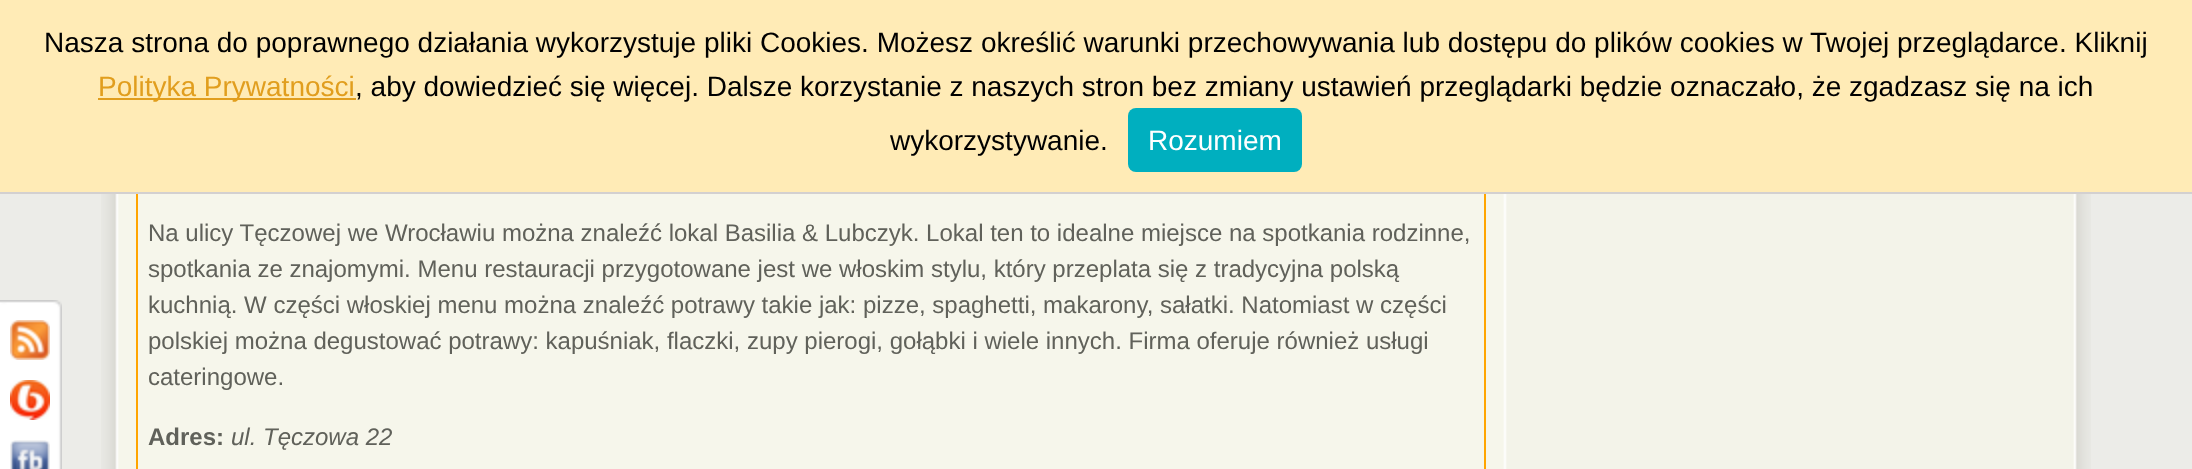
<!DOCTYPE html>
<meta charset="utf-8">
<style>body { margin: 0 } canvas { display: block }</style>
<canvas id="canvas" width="2192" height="469"></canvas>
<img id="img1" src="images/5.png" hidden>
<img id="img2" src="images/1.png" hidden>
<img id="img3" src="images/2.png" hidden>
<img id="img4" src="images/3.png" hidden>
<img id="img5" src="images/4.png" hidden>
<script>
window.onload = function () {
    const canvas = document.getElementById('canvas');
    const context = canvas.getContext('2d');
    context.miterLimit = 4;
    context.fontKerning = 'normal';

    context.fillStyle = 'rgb(236, 236, 232)';
    context.fillRect(0, 0, 2192, 469);
    context.drawImage(document.getElementById('img1'), 101, 194, 1990, 275);
    context.strokeStyle = 'rgb(255, 165, 0)';
    context.lineWidth = 2;
    context.strokeRect(137, -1, 1348, 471);
    context.fillStyle = 'rgb(255, 235, 182)';
    context.fillRect(0, 0, 2192, 192);
    context.fillStyle = 'rgb(211, 208, 208)';
    context.fillRect(0, 192, 2192, 2);
    context.fillStyle = 'rgb(225, 158, 30)';
    context.fillRect(98, 98, 258, 2);
    context.fillStyle = 'rgb(0, 175, 191)';
    context.beginPath();
    context.roundRect(1128, 108, 174, 64, 8);
    context.fill();
    context.drawImage(document.getElementById('img2'), 0, 300, 62, 169);
    context.drawImage(document.getElementById('img3'), 10, 320, 40, 40);
    context.drawImage(document.getElementById('img4'), 10, 380, 40, 40);
    context.drawImage(document.getElementById('img5'), 10, 440, 40, 29);
    context.font = '28px Liberation Sans';
    context.fillStyle = 'rgb(0, 0, 0)';
    context.fillText('Nasza strona do poprawnego działania wykorzystuje pliki Cookies. Możesz określić warunki przechowywania lub dostępu do plików cookies w Twojej przeglądarce. Kliknij', 44, 52);
    context.fillStyle = 'rgb(225, 158, 30)';
    context.fillText('Polityka Prywatności', 98, 96);
    context.fillStyle = 'rgb(0, 0, 0)';
    context.fillText(', aby dowiedzieć się więcej. Dalsze korzystanie z naszych stron bez zmiany ustawień przeglądarki będzie oznaczało, że zgadzasz się na ich', 355, 96);
    context.fillText('wykorzystywanie.', 890, 150);
    context.fillStyle = 'rgb(255, 255, 255)';
    context.fillText('Rozumiem', 1148, 150);
    context.font = '24px Liberation Sans';
    context.fillStyle = 'rgb(96, 97, 90)';
    context.fillText('Na ulicy Tęczowej we Wrocławiu można znaleźć lokal Basilia & Lubczyk. Lokal ten to idealne miejsce na spotkania rodzinne,', 148, 241);
    context.fillText('spotkania ze znajomymi. Menu restauracji przygotowane jest we włoskim stylu, który przeplata się z tradycyjna polską', 148, 277);
    context.fillText('kuchnią. W części włoskiej menu można znaleźć potrawy takie jak: pizze, spaghetti, makarony, sałatki. Natomiast w części', 148, 313);
    context.fillText('polskiej można degustować potrawy: kapuśniak, flaczki, zupy pierogi, gołąbki i wiele innych. Firma oferuje również usługi', 148, 349);
    context.fillText('cateringowe.', 148, 385);
    context.font = 'bold 24px Liberation Sans';
    context.fillText('Adres:', 148, 445);
    context.font = 'italic 24px Liberation Sans';
    context.fillText('ul. Tęczowa 22', 231, 445);
};
</script>
